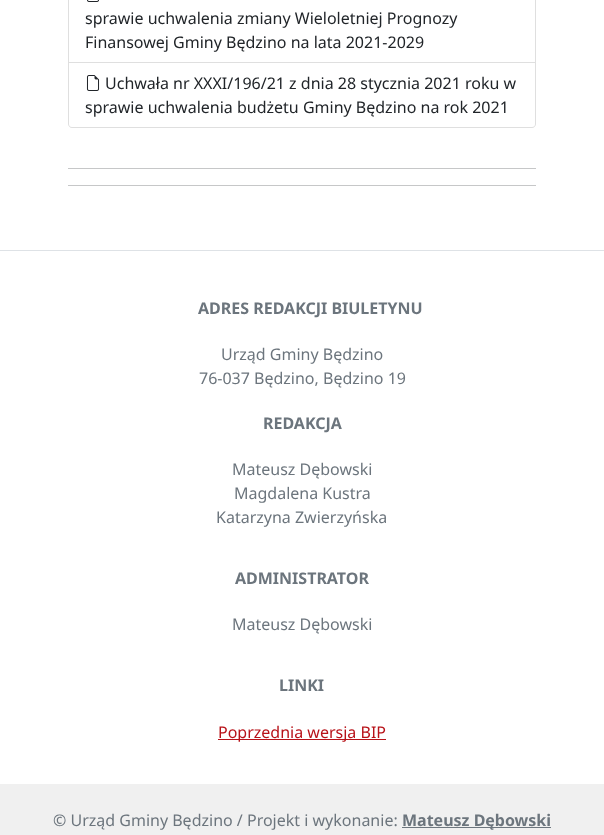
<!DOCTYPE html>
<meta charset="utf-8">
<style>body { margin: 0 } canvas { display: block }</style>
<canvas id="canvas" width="604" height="835"></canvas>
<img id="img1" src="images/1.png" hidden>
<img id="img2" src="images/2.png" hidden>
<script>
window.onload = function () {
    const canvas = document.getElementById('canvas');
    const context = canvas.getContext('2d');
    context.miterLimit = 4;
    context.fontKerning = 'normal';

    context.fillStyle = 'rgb(255, 255, 255)';
    context.fillRect(0, 0, 604, 835);
    context.strokeStyle = 'rgb(223, 223, 223)';
    context.strokeRect(68.5, -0.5, 467, 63);
    context.drawImage(document.getElementById('img1'), 87, 0, 12, 2);
    context.fillStyle = 'rgb(223, 223, 223)';
    context.beginPath();
    context.moveTo(68, 63);
    context.lineTo(536, 63);
    context.lineTo(536, 124);
    context.bezierCurveTo(536, 126, 534, 128, 532, 128);
    context.lineTo(72, 128);
    context.bezierCurveTo(70, 128, 68, 126, 68, 124);
    context.closePath();
    context.moveTo(69, 63);
    context.lineTo(535, 63);
    context.lineTo(535, 124);
    context.bezierCurveTo(535, 126, 534, 127, 532, 127);
    context.lineTo(72, 127);
    context.bezierCurveTo(70, 127, 69, 126, 69, 124);
    context.closePath();
    context.fill('evenodd');
    context.drawImage(document.getElementById('img2'), 86, 75, 14, 16);
    context.fillStyle = 'rgb(198, 199, 200)';
    context.fillRect(68, 168, 468, 1);
    context.fillRect(68, 185, 468, 1);
    context.fillStyle = 'rgb(222, 226, 230)';
    context.fillRect(0, 250, 604, 1);
    context.fillStyle = 'rgb(184, 18, 25)';
    context.fillRect(218, 739, 168, 1);
    context.fillStyle = 'rgb(240, 240, 240)';
    context.fillRect(0, 784, 604, 51);
    context.fillStyle = 'rgb(108, 117, 125)';
    context.fillRect(402, 827, 149, 1);
    context.font = '16px Noto Sans';
    context.fillStyle = 'rgb(33, 37, 41)';
    context.fillText('sprawie uchwalenia zmiany Wieloletniej Prognozy', 85, 24);
    context.fillText('Finansowej Gminy Będzino na lata 2021-2029', 85, 48);
    context.fillText('Uchwała nr XXXI/196/21 z dnia 28 stycznia 2021 roku w', 105, 89);
    context.fillText('sprawie uchwalenia budżetu Gminy Będzino na rok 2021', 85, 113);
    context.font = 'bold 16px Noto Sans';
    context.fillStyle = 'rgb(108, 117, 125)';
    context.fillText('ADRES REDAKCJI BIULETYNU', 198, 314);
    context.font = '16px Noto Sans';
    context.fillText('Urząd Gminy Będzino', 221, 360);
    context.fillText('76-037 Będzino, Będzino 19', 199, 384);
    context.font = 'bold 16px Noto Sans';
    context.fillText('REDAKCJA', 263, 429);
    context.font = '16px Noto Sans';
    context.fillText('Mateusz Dębowski', 232, 475);
    context.fillText('Magdalena Kustra', 234, 499);
    context.fillText('Katarzyna Zwierzyńska', 216, 523);
    context.font = 'bold 16px Noto Sans';
    context.fillText('ADMINISTRATOR', 235, 584);
    context.font = '16px Noto Sans';
    context.fillText('Mateusz Dębowski', 232, 630);
    context.font = 'bold 16px Noto Sans';
    context.fillText('LINKI', 279, 691);
    context.font = '16px Noto Sans';
    context.fillStyle = 'rgb(184, 18, 25)';
    context.fillText('Poprzednia wersja BIP', 218, 738);
    context.fillStyle = 'rgb(108, 117, 125)';
    context.fillText('© Urząd Gminy Będzino / Projekt i wykonanie:', 53, 826);
    context.font = 'bold 16px Noto Sans';
    context.fillText('Mateusz Dębowski', 402, 826);
};
</script>
